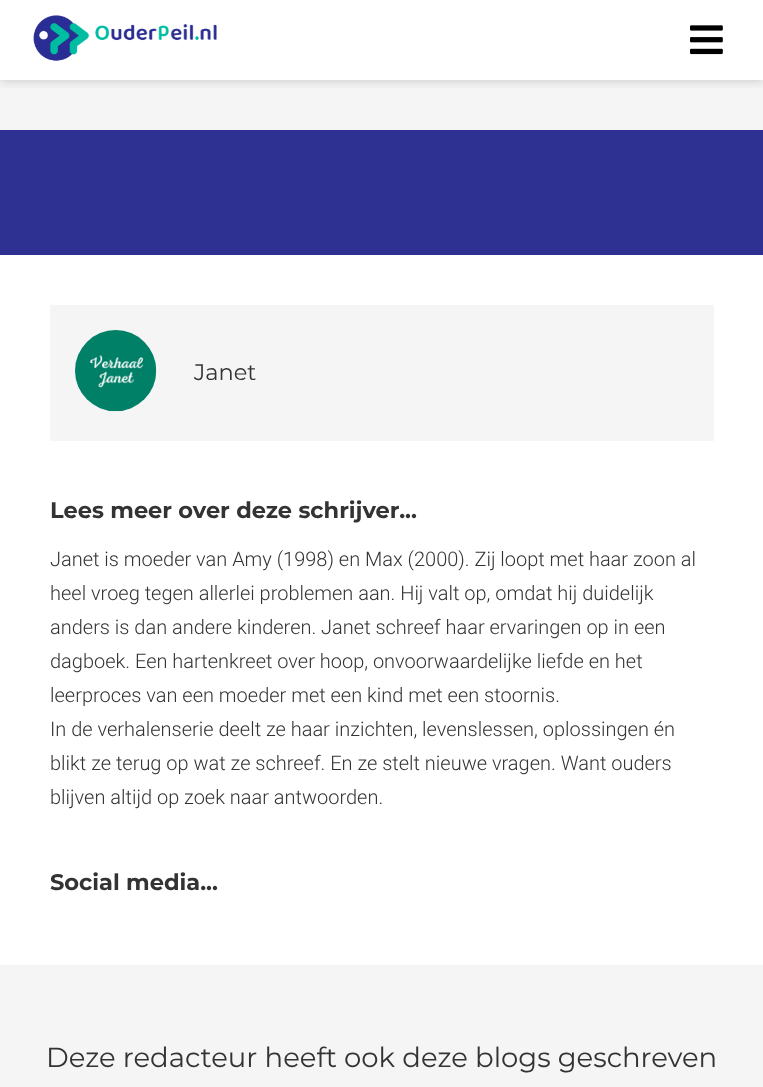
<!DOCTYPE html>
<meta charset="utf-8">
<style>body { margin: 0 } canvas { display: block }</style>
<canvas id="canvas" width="763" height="1087"></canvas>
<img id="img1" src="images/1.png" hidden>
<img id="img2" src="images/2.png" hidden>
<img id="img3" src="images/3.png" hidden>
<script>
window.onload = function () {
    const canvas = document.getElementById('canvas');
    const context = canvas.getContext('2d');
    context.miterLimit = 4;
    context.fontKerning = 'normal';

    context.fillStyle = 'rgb(255, 255, 255)';
    context.fillRect(0, 0, 763, 1087);
    context.fillStyle = 'rgb(245, 245, 245)';
    context.fillRect(0, 80, 763, 1007);
    context.save();
    context.beginPath();
    context.rect(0, 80, 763, 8);
    context.clip();
    context.fillStyle = 'rgba(0, 0, 0, 0.2)';
    context.filter = 'blur(6px)';
    context.beginPath();
    context.rect(0, 0, 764, 80);
    context.fill();
    context.filter = 'none';
    context.restore();
    context.drawImage(document.getElementById('img1'), 33, 15, 184, 46);
    context.drawImage(document.getElementById('img2'), 690, 25, 33, 30);
    context.fillStyle = 'rgb(46, 49, 146)';
    context.fillRect(0, 130, 763, 125);
    context.fillStyle = 'rgb(255, 255, 255)';
    context.fillRect(0, 255, 763, 710);
    context.fillStyle = 'rgb(245, 245, 245)';
    context.fillRect(50, 305, 664, 136);
    context.drawImage(document.getElementById('img3'), 75, 330, 82, 82);
    context.font = '100 22.5px "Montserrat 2"';
    context.fillStyle = 'rgb(51, 51, 51)';
    context.fillText('Janet', 194, 380);
    context.font = '100 22.5px Montserrat';
    context.fillText('Lees meer over deze schrijver...', 50, 518);
    context.font = '300 20px Roboto';
    context.fillText('Janet is moeder van Amy (1998) en Max (2000). Zij loopt met haar zoon al', 50, 566);
    context.fillText('heel vroeg tegen allerlei problemen aan. Hij valt op, omdat hij duidelijk', 50, 600);
    context.fillText('anders is dan andere kinderen. Janet schreef haar ervaringen op in een', 50, 634);
    context.fillText('dagboek. Een hartenkreet over hoop, onvoorwaardelijke liefde en het', 50, 668);
    context.fillText('leerproces van een moeder met een kind met een stoornis.', 50, 702);
    context.fillText('In de verhalenserie deelt ze haar inzichten, levenslessen, oplossingen én', 50, 736);
    context.fillText('blikt ze terug op wat ze schreef. En ze stelt nieuwe vragen. Want ouders', 50, 770);
    context.fillText('blijven altijd op zoek naar antwoorden.', 50, 804);
    context.font = '100 22.5px Montserrat';
    context.fillText('Social media...', 50, 890);
    context.font = '100 27.5px "Montserrat 2"';
    context.fillText('Deze redacteur heeft ook deze blogs geschreven', 46, 1067);
};
</script>
